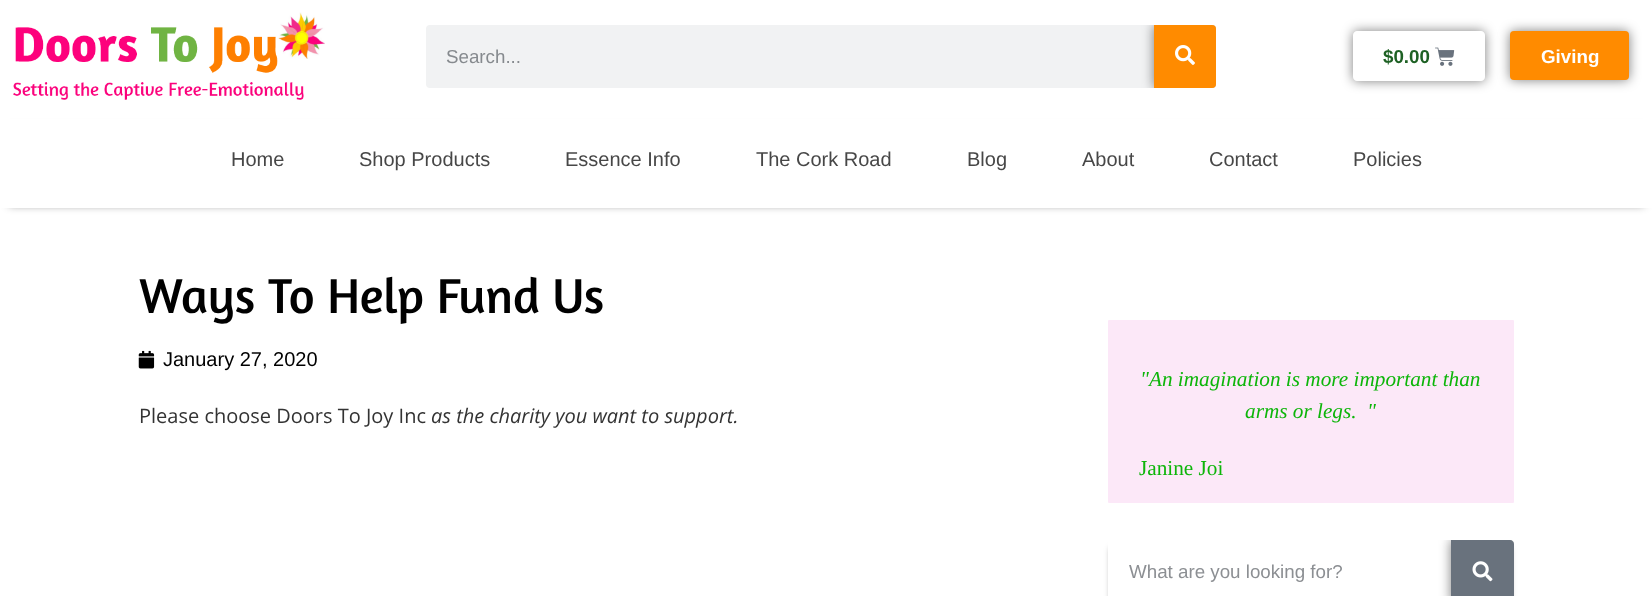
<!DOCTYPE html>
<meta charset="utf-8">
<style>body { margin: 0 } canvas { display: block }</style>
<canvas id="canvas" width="1652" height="596"></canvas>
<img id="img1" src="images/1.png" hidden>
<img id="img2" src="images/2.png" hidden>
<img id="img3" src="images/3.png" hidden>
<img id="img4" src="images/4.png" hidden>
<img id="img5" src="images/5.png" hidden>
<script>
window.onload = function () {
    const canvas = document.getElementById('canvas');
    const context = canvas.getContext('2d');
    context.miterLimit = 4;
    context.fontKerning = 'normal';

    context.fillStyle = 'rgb(255, 255, 255)';
    context.fillRect(0, 0, 1652, 596);
    context.drawImage(document.getElementById('img1'), 13, 12, 312, 88);
    context.fillStyle = 'rgb(241, 242, 243)';
    context.beginPath();
    context.roundRect(426, 25, 790, 63, 4);
    context.fill();
    context.save();
    context.beginPath();
    context.roundRect(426, 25, 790, 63, 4);
    context.clip();
    context.fillStyle = 'rgba(0, 0, 0, 0.5)';
    context.filter = 'blur(6px)';
    context.beginPath();
    context.rect(1154, 25, 62, 63);
    context.fill();
    context.filter = 'none';
    context.restore();
    context.fillStyle = 'rgb(255, 139, 0)';
    context.beginPath();
    context.roundRect(1154, 25, 62, 63, [0, 4, 4, 0]);
    context.fill();
    context.drawImage(document.getElementById('img2'), 1175, 45, 20, 20);
    context.save();
    context.beginPath();
    context.moveTo(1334, 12);
    context.lineTo(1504, 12);
    context.lineTo(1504, 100);
    context.lineTo(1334, 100);
    context.closePath();
    context.moveTo(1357, 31);
    context.lineTo(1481, 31);
    context.bezierCurveTo(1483, 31, 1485, 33, 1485, 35);
    context.lineTo(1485, 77);
    context.bezierCurveTo(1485, 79, 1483, 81, 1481, 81);
    context.lineTo(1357, 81);
    context.bezierCurveTo(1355, 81, 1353, 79, 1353, 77);
    context.lineTo(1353, 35);
    context.bezierCurveTo(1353, 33, 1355, 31, 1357, 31);
    context.closePath();
    context.clip('evenodd');
    context.fillStyle = 'rgba(0, 0, 0, 0.5)';
    context.filter = 'blur(6px)';
    context.beginPath();
    context.roundRect(1353, 31, 132, 50, 4);
    context.fill();
    context.filter = 'none';
    context.restore();
    context.drawImage(document.getElementById('img3'), 1435, 47, 20, 19);
    context.fillStyle = 'rgba(0, 0, 0, 0.5)';
    context.filter = 'blur(6px)';
    context.beginPath();
    context.roundRect(1510, 31, 119, 49, 4);
    context.fill();
    context.filter = 'none';
    context.fillStyle = 'rgb(255, 139, 0)';
    context.beginPath();
    context.roundRect(1510, 31, 119, 49, 4);
    context.fill();
    context.fillStyle = 'rgba(0, 0, 0, 0.5)';
    context.filter = 'blur(4.5px)';
    context.beginPath();
    context.rect(9, 128, 1635, 77);
    context.fill();
    context.filter = 'none';
    context.fillStyle = 'rgb(255, 255, 255)';
    context.fillRect(0, 119, 1652, 89);
    context.drawImage(document.getElementById('img4'), 138, 350, 17, 19);
    context.fillStyle = 'rgb(252, 232, 248)';
    context.beginPath();
    context.roundRect(1108, 320, 406, 183, 1);
    context.fill();
    context.fillStyle = 'rgba(0, 0, 0, 0.5)';
    context.filter = 'blur(3px)';
    context.beginPath();
    context.rect(1111, 548, 399, 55);
    context.fill();
    context.filter = 'none';
    context.fillStyle = 'rgb(255, 255, 255)';
    context.beginPath();
    context.roundRect(1108, 540, 406, 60, 4);
    context.fill();
    context.save();
    context.beginPath();
    context.roundRect(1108, 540, 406, 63, 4);
    context.clip();
    context.fillStyle = 'rgba(0, 0, 0, 0.5)';
    context.filter = 'blur(6px)';
    context.beginPath();
    context.rect(1451, 540, 63, 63);
    context.fill();
    context.filter = 'none';
    context.restore();
    context.fillStyle = 'rgb(105, 114, 125)';
    context.beginPath();
    context.moveTo(1451, 540);
    context.lineTo(1510, 540);
    context.bezierCurveTo(1512, 540, 1514, 542, 1514, 544);
    context.lineTo(1514, 596);
    context.bezierCurveTo(1514, 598, 1512, 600, 1510, 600);
    context.lineTo(1451, 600);
    context.closePath();
    context.fill();
    context.drawImage(document.getElementById('img5'), 1472, 561, 21, 21);
    context.font = '18.75px Liberation Sans';
    context.fillStyle = 'rgb(134, 138, 142)';
    context.fillText('Search...', 446, 63);
    context.font = 'bold 18.75px Liberation Sans';
    context.fillStyle = 'rgb(30, 97, 36)';
    context.fillText('$0.00', 1383, 63);
    context.fillStyle = 'rgb(255, 255, 255)';
    context.fillText('Giving', 1541, 63);
    context.font = '20px Liberation Sans';
    context.fillStyle = 'rgb(71, 71, 71)';
    context.fillText('Home', 231, 166);
    context.fillText('Shop Products', 359, 166);
    context.fillText('Essence Info', 565, 166);
    context.fillText('The Cork Road', 756, 166);
    context.fillText('Blog', 967, 166);
    context.fillText('About', 1082, 166);
    context.fillText('Contact', 1209, 166);
    context.fillText('Policies', 1353, 166);
    context.font = '50px Amaranth';
    context.fillStyle = 'rgb(0, 0, 0)';
    context.fillText('Ways To Help Fund Us', 139, 313);
    context.font = '20px Liberation Sans';
    context.fillText('January 27, 2020', 163, 366);
    context.font = '20px Open Sans';
    context.fillStyle = 'rgb(51, 51, 51)';
    context.fillText('Please choose Doors To Joy Inc', 139, 423);
    context.font = 'italic 20px Open Sans';
    context.fillText('as the charity you want to support.', 431, 423);
    context.font = 'italic 21.25px Liberation Serif';
    context.fillStyle = 'rgb(13, 181, 10)';
    context.fillText('"An imagination is more important than', 1140, 386);
    context.fillText('arms or legs.', 1245, 418);
    context.fillText('"', 1367, 418);
    context.font = '21.25px Liberation Serif';
    context.fillText('Janine Joi', 1139, 475);
    context.font = '18.75px Liberation Sans';
    context.fillStyle = 'rgb(140, 143, 147)';
    context.fillText('What are you looking for?', 1129, 578);
};
</script>
